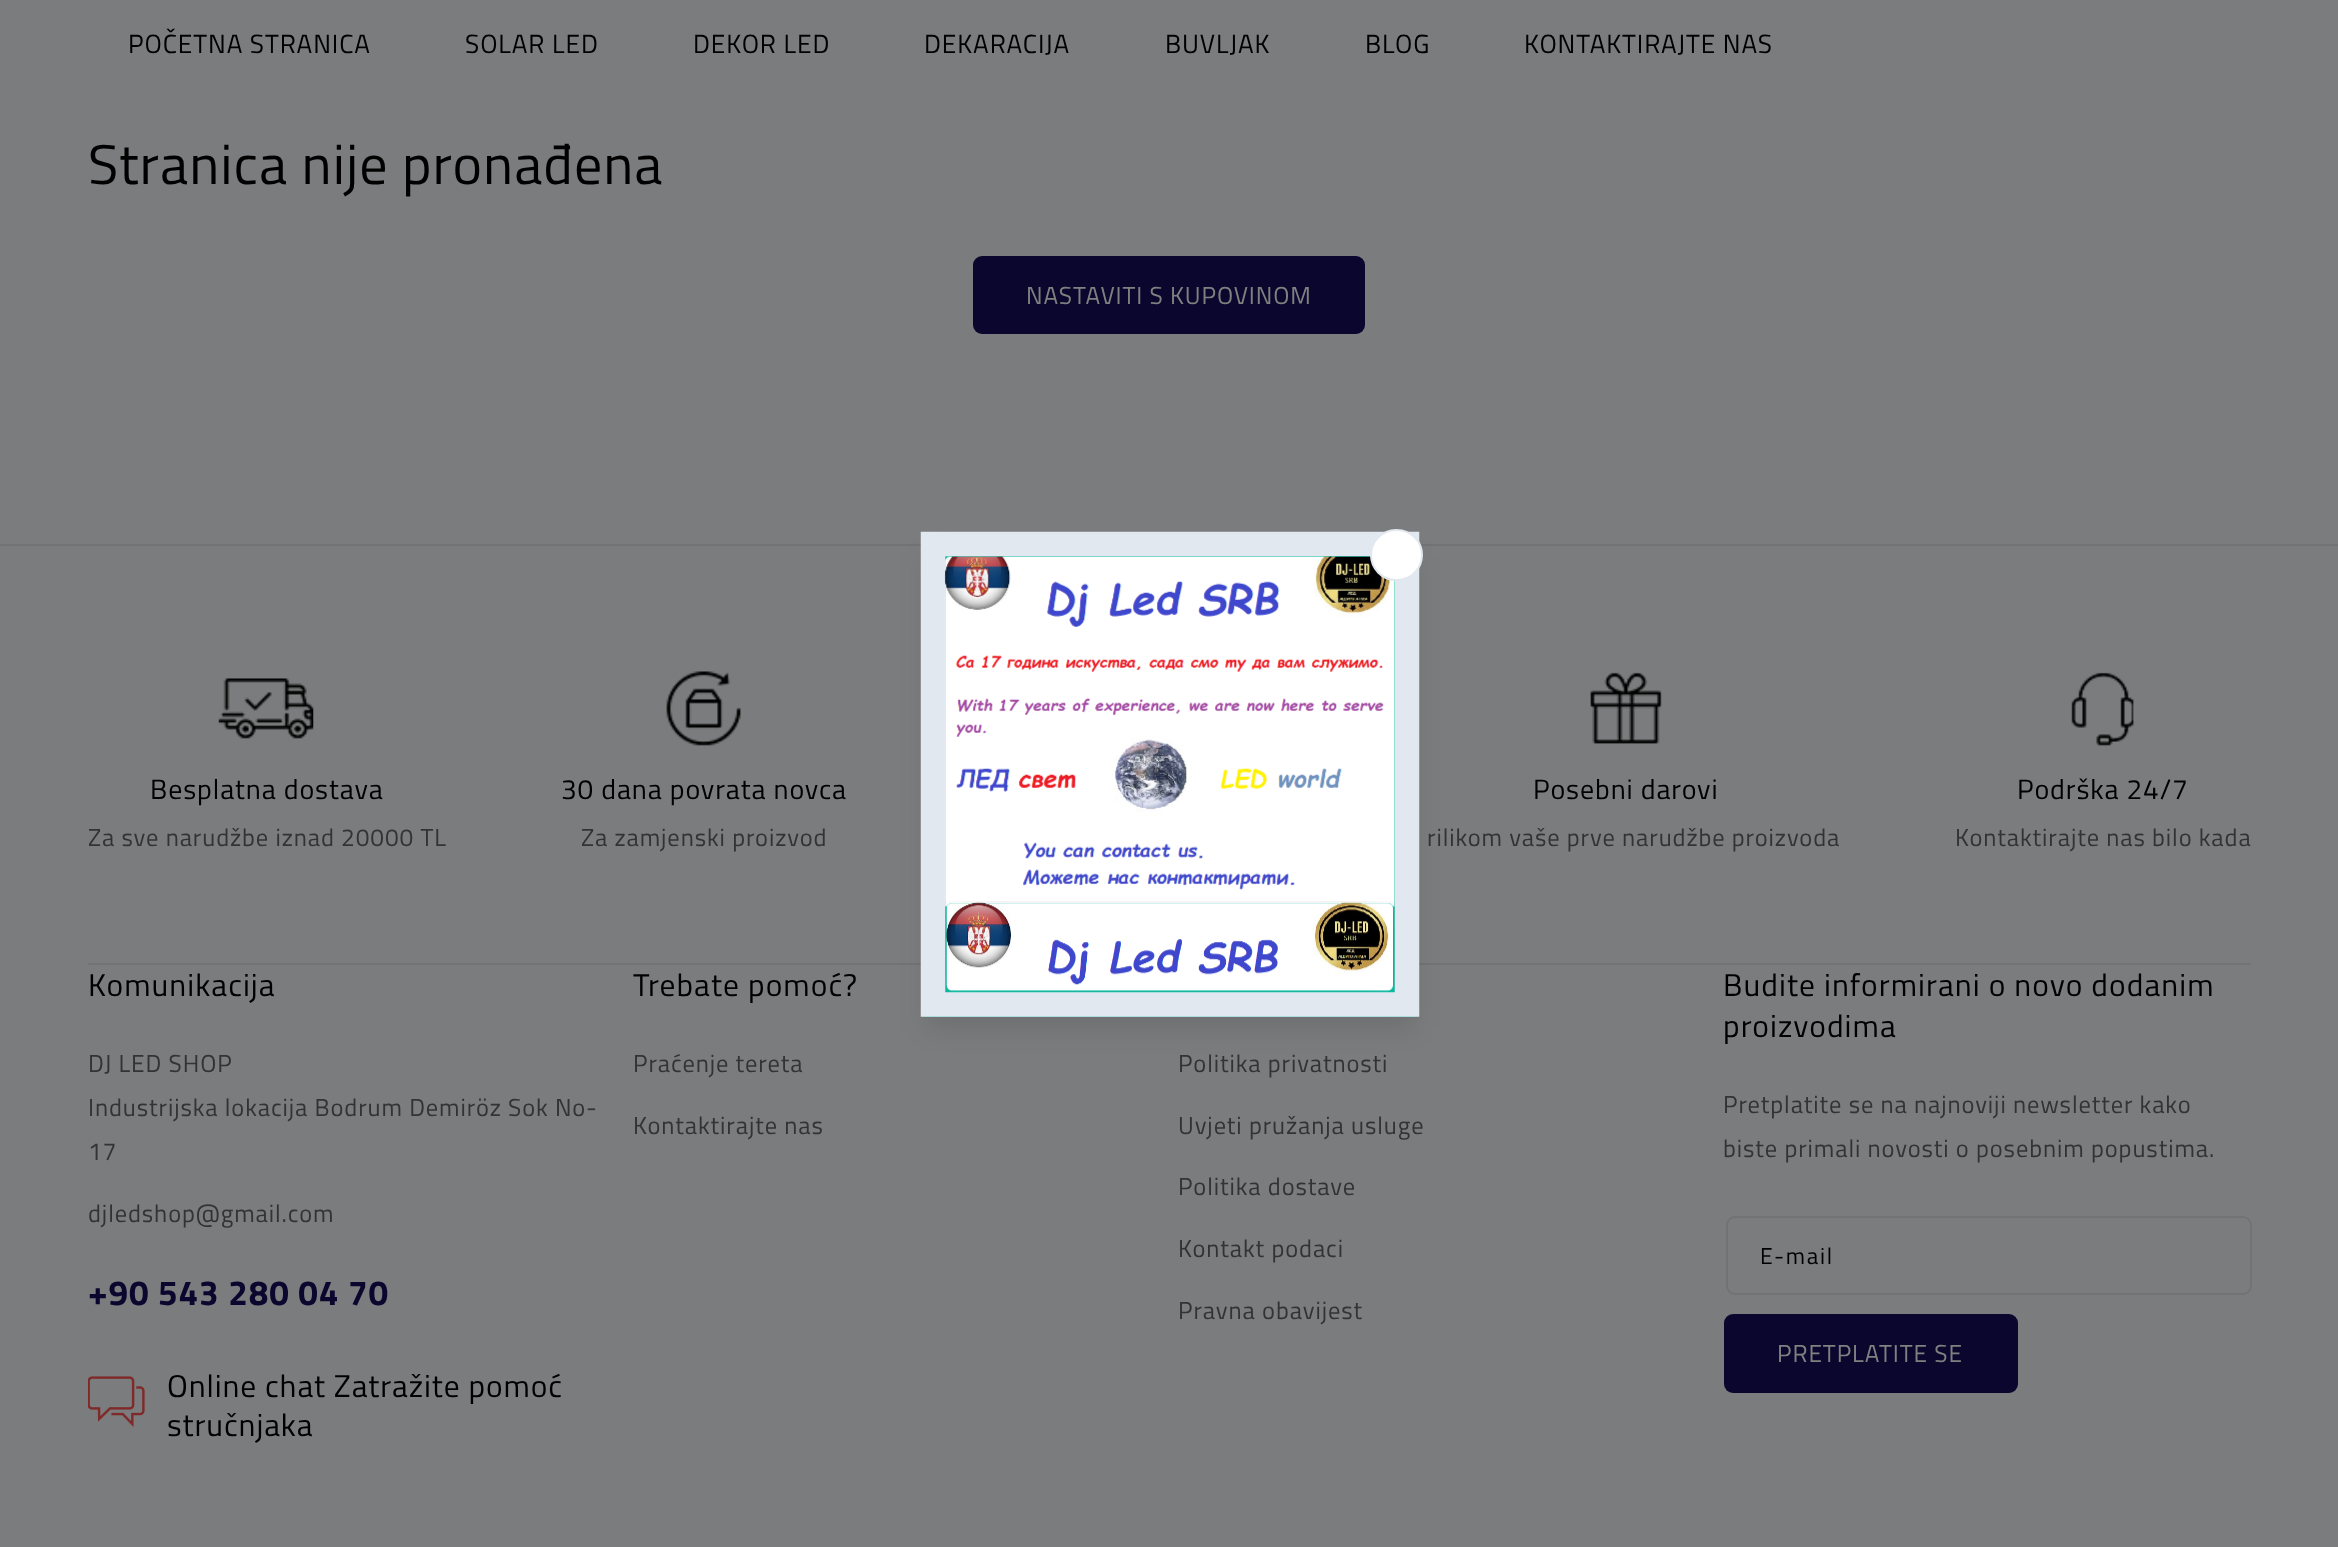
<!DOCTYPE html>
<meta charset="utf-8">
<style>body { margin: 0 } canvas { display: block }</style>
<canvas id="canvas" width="2338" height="1547"></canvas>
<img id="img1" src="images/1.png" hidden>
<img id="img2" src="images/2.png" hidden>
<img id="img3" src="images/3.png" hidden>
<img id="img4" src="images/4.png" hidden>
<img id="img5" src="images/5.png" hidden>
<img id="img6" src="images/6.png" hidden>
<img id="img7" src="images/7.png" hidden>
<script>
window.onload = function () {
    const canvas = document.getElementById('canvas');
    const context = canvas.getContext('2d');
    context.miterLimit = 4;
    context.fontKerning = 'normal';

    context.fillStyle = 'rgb(123, 124, 125)';
    context.fillRect(0, 0, 2338, 1547);
    context.fillStyle = 'rgb(11, 6, 46)';
    context.beginPath();
    context.roundRect(973, 256, 392, 78, 9);
    context.fill();
    context.fillStyle = 'rgb(115, 115, 115)';
    context.fillRect(0, 544, 2338, 2);
    context.fillRect(88, 963, 2163, 2);
    context.fillStyle = 'rgba(0, 0, 0, 0.1)';
    context.filter = 'blur(13px)';
    context.beginPath();
    context.rect(926, 555, 488, 474);
    context.fill();
    context.filter = 'none';
    context.fillStyle = 'rgb(14, 187, 162)';
    context.beginPath();
    context.roundRect(921, 532, 498, 485, 5);
    context.fill();
    context.beginPath();
    context.moveTo(933, 544);
    context.lineTo(1407, 544);
    context.lineTo(1407, 1004.5);
    context.lineTo(933, 1004.5);
    context.closePath();
    context.strokeStyle = 'rgb(226, 232, 240)';
    context.lineWidth = 24.5;
    context.stroke();
    context.drawImage(document.getElementById('img1'), 944, 556, 451, 351);
    context.fillStyle = 'rgb(255, 255, 255)';
    context.beginPath();
    context.roundRect(1371, 530, 51, 50, 25);
    context.fill();
    context.lineWidth = 2;
    context.stroke();
    context.save();
    context.beginPath();
    context.rect(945, 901, 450, 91);
    context.clip();
    context.fillStyle = 'rgba(0, 0, 0, 0.12)';
    context.filter = 'blur(17.5px)';
    context.beginPath();
    context.rect(952, 908, 436, 77);
    context.fill();
    context.filter = 'none';
    context.restore();
    context.fillStyle = 'rgb(14, 187, 162)';
    context.beginPath();
    context.roundRect(947, 903, 446, 88, 5);
    context.fill();
    context.drawImage(document.getElementById('img2'), 946, 902, 447, 90);
    context.drawImage(document.getElementById('img3'), 218, 678, 96, 61);
    context.drawImage(document.getElementById('img4'), 666, 671, 75, 75);
    context.drawImage(document.getElementById('img5'), 1590, 672, 72, 72);
    context.drawImage(document.getElementById('img6'), 2071, 672, 63, 74);
    context.drawImage(document.getElementById('img7'), 88, 1376, 57, 51);
    context.beginPath();
    context.roundRect(1727, 1217, 524, 77, 8);
    context.strokeStyle = 'rgb(115, 115, 115)';
    context.stroke();
    context.fillStyle = 'rgb(11, 6, 46)';
    context.beginPath();
    context.roundRect(1724, 1314, 294, 79, 9);
    context.fill();
    context.letterSpacing = '0.9px';
    context.font = '26.25px Titillium Web';
    context.fillStyle = 'rgb(0, 0, 0)';
    context.fillText('POČETNA STRANICA', 128, 53);
    context.fillText('SOLAR LED', 465, 53);
    context.fillText('DEKOR LED', 693, 53);
    context.fillText('DEKARACIJA', 924, 53);
    context.fillText('BUVLJAK', 1165, 53);
    context.fillText('BLOG', 1365, 53);
    context.fillText('KONTAKTIRAJTE NAS', 1524, 53);
    context.letterSpacing = '1.05px';
    context.font = '56px Titillium Web';
    context.fillText('Stranica nije pronađena', 88, 184);
    context.letterSpacing = '0.9px';
    context.font = '24.5px Titillium Web';
    context.fillStyle = 'rgb(128, 128, 128)';
    context.fillText('NASTAVITI S KUPOVINOM', 1026, 304);
    context.font = '28px Titillium Web';
    context.fillStyle = 'rgb(0, 0, 0)';
    context.fillText('Besplatna dostava', 150, 799);
    context.font = '24.5px Titillium Web';
    context.fillStyle = 'rgb(51, 51, 51)';
    context.fillText('Za sve narudžbe iznad 20000 TL', 88, 846);
    context.font = '28px Titillium Web';
    context.fillStyle = 'rgb(0, 0, 0)';
    context.fillText('30 dana povrata novca', 561, 799);
    context.font = '24.5px Titillium Web';
    context.fillStyle = 'rgb(51, 51, 51)';
    context.fillText('Za zamjenski proizvod', 581, 846);
    context.font = '28px Titillium Web';
    context.fillStyle = 'rgb(0, 0, 0)';
    context.fillText('Posebni darovi', 1533, 799);
    context.font = '24.5px Titillium Web';
    context.fillStyle = 'rgb(51, 51, 51)';
    context.fillText('rilikom vaše prve narudžbe proizvoda', 1427, 846);
    context.font = '28px Titillium Web';
    context.fillStyle = 'rgb(0, 0, 0)';
    context.fillText('Podrška 24/7', 2017, 799);
    context.font = '24.5px Titillium Web';
    context.fillStyle = 'rgb(51, 51, 51)';
    context.fillText('Kontaktirajte nas bilo kada', 1955, 846);
    context.letterSpacing = '1.05px';
    context.font = '31.5px Titillium Web';
    context.fillStyle = 'rgb(0, 0, 0)';
    context.fillText('Komunikacija', 88, 996);
    context.letterSpacing = '0.9px';
    context.font = '24.5px Titillium Web';
    context.fillStyle = 'rgb(51, 51, 51)';
    context.fillText('DJ LED SHOP', 88, 1072);
    context.fillText('Industrijska lokacija Bodrum Demiröz Sok No-', 88, 1116);
    context.fillText('17', 88, 1160);
    context.fillText('djledshop@gmail.com', 88, 1222);
    context.font = 'bold 35px Titillium Web';
    context.fillStyle = 'rgb(11, 6, 46)';
    context.fillText('+90 543 280 04 70', 88, 1305);
    context.font = '31.5px Titillium Web';
    context.fillStyle = 'rgb(0, 0, 0)';
    context.fillText('Online chat Zatražite pomoć', 167, 1397);
    context.fillText('stručnjaka', 167, 1436);
    context.letterSpacing = '1.05px';
    context.fillText('Trebate pomoć?', 633, 996);
    context.letterSpacing = '0.9px';
    context.font = '24.5px Titillium Web';
    context.fillStyle = 'rgb(51, 51, 51)';
    context.fillText('Praćenje tereta', 633, 1072);
    context.fillText('Kontaktirajte nas', 633, 1134);
    context.fillText('Politika privatnosti', 1178, 1072);
    context.fillText('Uvjeti pružanja usluge', 1178, 1134);
    context.fillText('Politika dostave', 1178, 1195);
    context.fillText('Kontakt podaci', 1178, 1257);
    context.fillText('Pravna obavijest', 1178, 1319);
    context.letterSpacing = '1.05px';
    context.font = '31.5px Titillium Web';
    context.fillStyle = 'rgb(0, 0, 0)';
    context.fillText('Budite informirani o novo dodanim', 1723, 996);
    context.fillText('proizvodima', 1723, 1037);
    context.letterSpacing = '0.9px';
    context.font = '24.5px Titillium Web';
    context.fillStyle = 'rgb(51, 51, 51)';
    context.fillText('Pretplatite se na najnoviji newsletter kako', 1723, 1113);
    context.fillText('biste primali novosti o posebnim popustima.', 1723, 1157);
    context.letterSpacing = '1.75px';
    context.font = '23px Titillium Web';
    context.fillStyle = 'rgb(0, 0, 0)';
    context.fillText('E-mail', 1760, 1264);
    context.letterSpacing = '0.9px';
    context.font = '24.5px Titillium Web';
    context.fillStyle = 'rgb(128, 128, 128)';
    context.fillText('PRETPLATITE SE', 1777, 1362);
};
</script>
